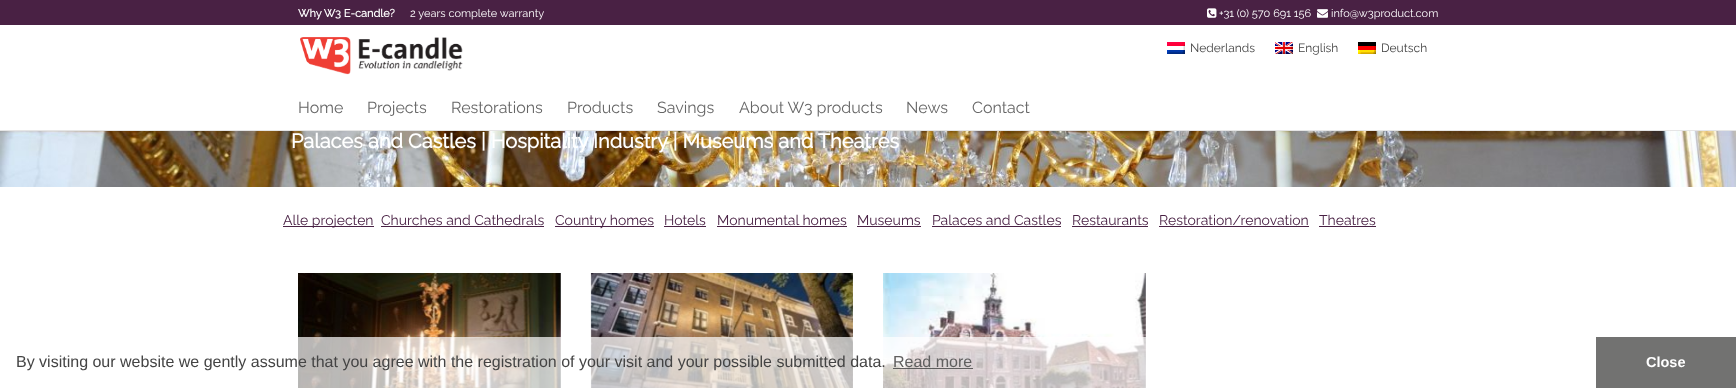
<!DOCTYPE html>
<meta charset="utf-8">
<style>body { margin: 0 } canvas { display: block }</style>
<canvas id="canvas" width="1736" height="388"></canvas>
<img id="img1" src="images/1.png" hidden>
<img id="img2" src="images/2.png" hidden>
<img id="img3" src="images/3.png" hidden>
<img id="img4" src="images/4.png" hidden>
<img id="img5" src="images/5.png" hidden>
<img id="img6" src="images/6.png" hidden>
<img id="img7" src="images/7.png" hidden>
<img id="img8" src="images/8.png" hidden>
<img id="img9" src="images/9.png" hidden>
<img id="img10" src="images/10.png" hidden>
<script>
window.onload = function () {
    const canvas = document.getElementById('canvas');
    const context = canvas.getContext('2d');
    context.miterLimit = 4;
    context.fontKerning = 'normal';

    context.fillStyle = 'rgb(255, 255, 255)';
    context.fillRect(0, 0, 1736, 388);
    context.fillStyle = 'rgb(73, 33, 68)';
    context.fillRect(0, 0, 1736, 25);
    context.drawImage(document.getElementById('img1'), 1207, 8, 10, 10);
    context.drawImage(document.getElementById('img2'), 1317, 9, 11, 9);
    context.fillStyle = 'rgb(229, 229, 229)';
    context.fillRect(0, 130, 1736, 1);
    context.drawImage(document.getElementById('img3'), 300, 37, 163, 38);
    context.drawImage(document.getElementById('img4'), 1167, 42, 18, 12);
    context.drawImage(document.getElementById('img5'), 1275, 42, 18, 12);
    context.drawImage(document.getElementById('img6'), 1358, 42, 18, 12);
    context.fillStyle = 'rgb(73, 33, 68)';
    context.fillRect(283, 226, 91, 1);
    context.fillRect(381, 226, 163, 1);
    context.fillRect(555, 226, 99, 1);
    context.fillRect(664, 226, 42, 1);
    context.fillRect(717, 226, 130, 1);
    context.fillRect(857, 226, 64, 1);
    context.fillRect(932, 226, 129, 1);
    context.fillRect(1072, 226, 76, 1);
    context.fillRect(1159, 226, 150, 1);
    context.fillRect(1319, 226, 57, 1);
    context.drawImage(document.getElementById('img7'), 298, 273, 263, 115);
    context.drawImage(document.getElementById('img8'), 590, 273, 263, 115);
    context.drawImage(document.getElementById('img9'), 883, 273, 263, 115);
    context.drawImage(document.getElementById('img10'), 0, 131, 1736, 56);
    context.fillStyle = 'rgba(255, 255, 255, 0.7)';
    context.fillRect(298, 337, 848, 51);
    context.fillStyle = 'rgba(64, 64, 64, 0.8)';
    context.fillRect(893, 368, 80, 1);
    context.fillStyle = 'rgb(114, 114, 113)';
    context.fillRect(1596, 337, 140, 51);
    context.font = 'bold 11px Raleway';
    context.fillStyle = 'rgb(255, 255, 255)';
    context.fillText('Why W3 E-candle?', 298, 17);
    context.font = '100 11px Raleway';
    context.fillText('2 years complete warranty', 410, 17);
    context.fillText('+31 (0) 570 691 156', 1219, 17);
    context.fillText('info@w3product.com', 1331, 17);
    context.font = '100 12px Raleway';
    context.fillStyle = 'rgb(68, 68, 68)';
    context.fillText('Nederlands', 1190, 52);
    context.fillText('English', 1298, 52);
    context.fillText('Deutsch', 1381, 52);
    context.font = '100 16px Raleway';
    context.fillStyle = 'rgb(102, 102, 102)';
    context.fillText('Home', 298, 113);
    context.fillText('Projects', 367, 113);
    context.fillText('Restorations', 451, 113);
    context.fillText('Products', 567, 113);
    context.fillText('Savings', 657, 113);
    context.fillText('About W3 products', 739, 113);
    context.fillText('News', 906, 113);
    context.fillText('Contact', 972, 113);
    context.font = 'bold 20px Raleway';
    context.fillStyle = 'rgb(255, 255, 255)';
    context.fillText('Palaces and Castles | Hospitality Industry | Museums and Theatres', 291, 148);
    context.font = '100 14px Raleway';
    context.fillStyle = 'rgb(73, 33, 68)';
    context.fillText('Alle projecten', 283, 225);
    context.fillText('Churches and Cathedrals', 381, 225);
    context.fillText('Country homes', 555, 225);
    context.fillText('Hotels', 664, 225);
    context.fillText('Monumental homes', 717, 225);
    context.fillText('Museums', 857, 225);
    context.fillText('Palaces and Castles', 932, 225);
    context.fillText('Restaurants', 1072, 225);
    context.fillText('Restoration/renovation', 1159, 225);
    context.fillText('Theatres', 1319, 225);
    context.font = '16px Liberation Sans';
    context.fillStyle = 'rgb(68, 68, 68)';
    context.fillText('By visiting our website we gently assume that you agree with the registration of your visit and your possible submitted data.', 16, 367);
    context.fillStyle = 'rgb(96, 95, 95)';
    context.fillText('Read more', 893, 367);
    context.font = 'bold 14.5px Liberation Sans';
    context.fillStyle = 'rgb(255, 255, 255)';
    context.fillText('Close', 1646, 367);
};
</script>
